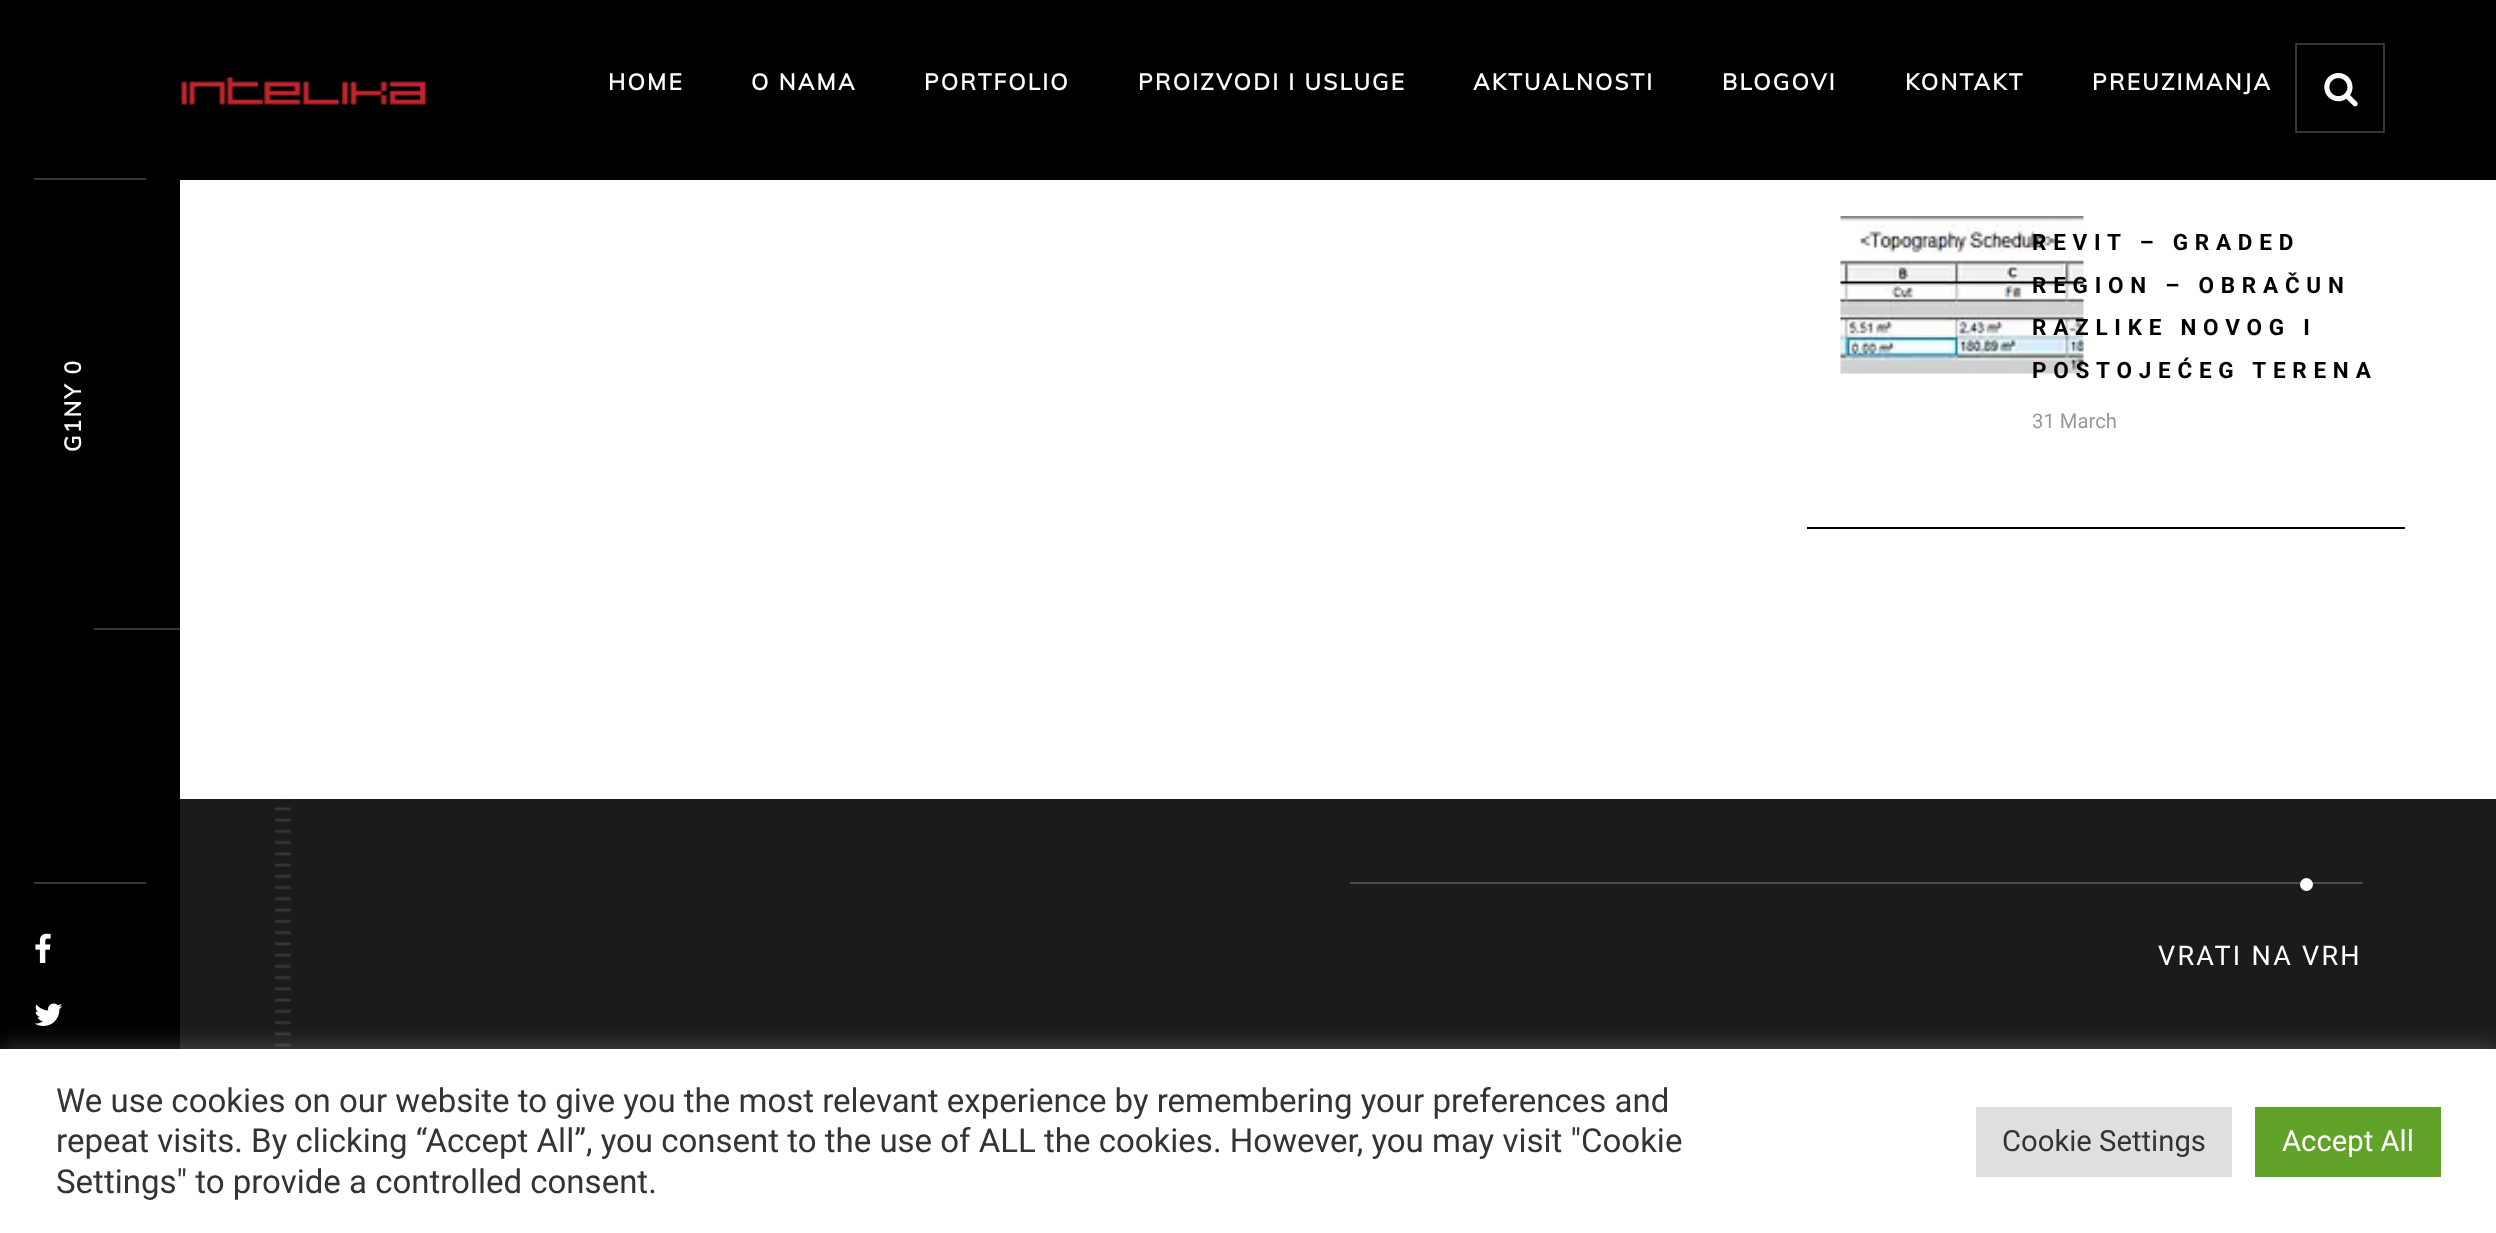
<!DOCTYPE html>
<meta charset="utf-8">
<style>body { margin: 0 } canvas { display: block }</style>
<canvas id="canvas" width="2496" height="1233"></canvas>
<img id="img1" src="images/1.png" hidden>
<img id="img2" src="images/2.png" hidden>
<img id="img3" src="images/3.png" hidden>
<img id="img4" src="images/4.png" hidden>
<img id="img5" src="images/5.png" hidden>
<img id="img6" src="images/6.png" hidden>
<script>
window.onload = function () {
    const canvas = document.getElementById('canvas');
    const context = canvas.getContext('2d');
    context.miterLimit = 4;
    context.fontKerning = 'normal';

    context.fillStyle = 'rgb(27, 27, 27)';
    context.fillRect(0, 0, 2496, 1233);
    context.fillStyle = 'rgb(0, 0, 0)';
    context.fillRect(0, 0, 2496, 180);
    context.drawImage(document.getElementById('img1'), 181, 76, 246, 29);
    context.strokeStyle = 'rgb(54, 54, 54)';
    context.lineWidth = 2;
    context.strokeRect(2296, 44, 88, 88);
    context.drawImage(document.getElementById('img2'), 2324, 73, 34, 34);
    context.fillStyle = 'rgb(54, 54, 54)';
    context.fillRect(34, 178, 112, 2);
    context.fillStyle = 'rgb(0, 0, 0)';
    context.fillRect(0, 180, 180, 869);
    context.fillStyle = 'rgb(54, 54, 54)';
    context.fillRect(94, 628, 86, 2);
    context.fillRect(34, 882, 112, 2);
    context.drawImage(document.getElementById('img3'), 35, 933, 16, 30);
    context.drawImage(document.getElementById('img4'), 34, 1003, 29, 23);
    context.fillStyle = 'rgb(255, 255, 255)';
    context.fillRect(180, 180, 2316, 619);
    context.fillStyle = 'rgb(0, 0, 0)';
    context.fillRect(1807, 527, 598, 2);
    context.drawImage(document.getElementById('img5'), 1840, 216, 244, 158);
    context.drawImage(document.getElementById('img6'), 275, 799, 16, 248);
    context.fillStyle = 'rgb(75, 75, 75)';
    context.fillRect(1350, 882, 1013, 2);
    context.fillStyle = 'rgb(255, 255, 255)';
    context.beginPath();
    context.arc(2306.5, 884.5, 6.5, 0, 2 * Math.PI);
    context.fill();
    context.fillStyle = 'rgba(172, 171, 171, 0.3)';
    context.filter = 'blur(11px)';
    context.beginPath();
    context.rect(0, 1046, 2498, 185);
    context.fill();
    context.filter = 'none';
    context.fillStyle = 'rgb(255, 255, 255)';
    context.fillRect(0, 1049, 2496, 184);
    context.fillStyle = 'rgb(222, 223, 224)';
    context.fillRect(1976, 1107, 256, 70);
    context.fillStyle = 'rgb(97, 162, 41)';
    context.fillRect(2255, 1107, 186, 70);
    context.letterSpacing = '2.25px';
    context.font = 'bold 22.5px Muli';
    context.fillStyle = 'rgb(255, 255, 255)';
    context.fillText('HOME', 608, 90);
    context.fillText('O NAMA', 751, 90);
    context.fillText('PORTFOLIO', 924, 90);
    context.fillText('PROIZVODI I USLUGE', 1138, 90);
    context.fillText('AKTUALNOSTI', 1473, 90);
    context.fillText('BLOGOVI', 1722, 90);
    context.fillText('KONTAKT', 1905, 90);
    context.fillText('PREUZIMANJA', 2092, 90);
    context.save();
    context.translate(81, 452);
    context.rotate(-90 * Math.PI / 180);
    context.fillText('G1NY 0', 0, 0);
    context.restore();
    context.letterSpacing = '6.75px';
    context.font = 'bold 22.5px Roboto';
    context.fillStyle = 'rgb(0, 0, 0)';
    context.fillText('REVIT – GRADED', 2032, 250);
    context.fillText('REGION – OBRAČUN', 2032, 293);
    context.fillText('RAZLIKE NOVOG I', 2032, 335);
    context.fillText('POSTOJEĆEG TERENA', 2032, 378);
    context.letterSpacing = '0px';
    context.font = '20.25px Roboto';
    context.fillStyle = 'rgb(153, 153, 153)';
    context.fillText('31 March', 2032, 428);
    context.letterSpacing = '2.25px';
    context.font = '27px Roboto';
    context.fillStyle = 'rgb(255, 255, 255)';
    context.fillText('VRATI NA VRH', 2158, 965);
    context.letterSpacing = '0px';
    context.font = '33px Roboto';
    context.fillStyle = 'rgb(51, 51, 51)';
    context.fillText('We use cookies on our website to give you the most relevant experience by remembering your preferences and', 56, 1112);
    context.fillText('repeat visits. By clicking “Accept All”, you consent to the use of ALL the cookies. However, you may visit "Cookie', 56, 1152);
    context.fillText('Settings" to provide a controlled consent.', 56, 1193);
    context.font = '29.25px Roboto';
    context.fillText('Cookie Settings', 2002, 1151);
    context.fillStyle = 'rgb(255, 255, 255)';
    context.fillText('Accept All', 2282, 1151);
};
</script>
